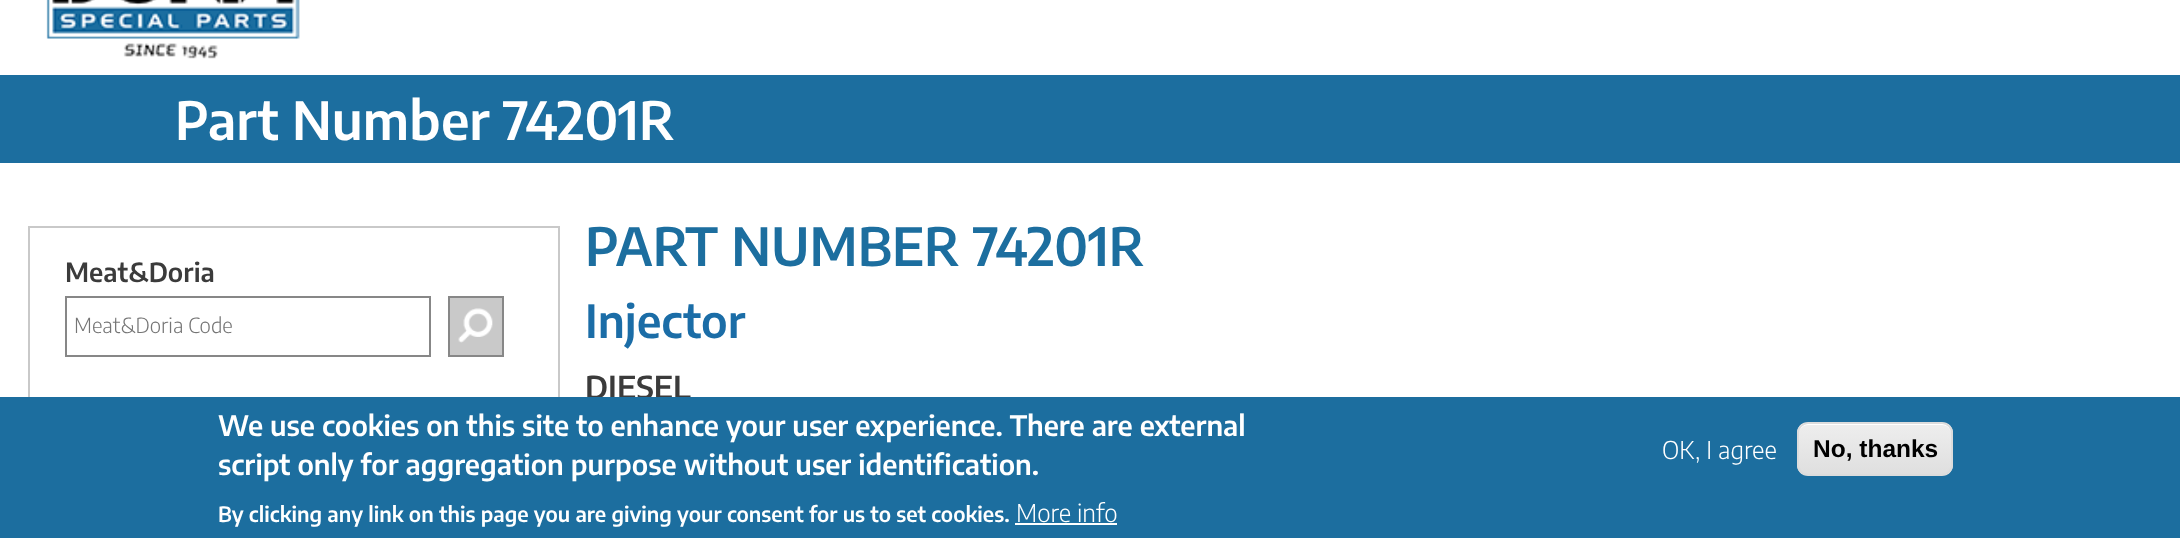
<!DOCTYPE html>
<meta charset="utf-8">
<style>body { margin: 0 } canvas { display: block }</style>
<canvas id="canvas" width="2180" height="538"></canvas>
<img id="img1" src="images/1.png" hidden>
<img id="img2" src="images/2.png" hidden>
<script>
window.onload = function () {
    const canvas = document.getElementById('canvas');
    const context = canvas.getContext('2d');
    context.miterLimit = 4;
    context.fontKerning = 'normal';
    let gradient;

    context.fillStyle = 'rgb(255, 255, 255)';
    context.fillRect(0, 0, 2180, 538);
    context.drawImage(document.getElementById('img1'), 46, 0, 254, 59);
    context.fillStyle = 'rgb(28, 110, 159)';
    context.fillRect(0, 75, 2180, 88);
    context.strokeStyle = 'rgb(201, 201, 201)';
    context.lineWidth = 2;
    context.strokeRect(29, 227, 530, 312);
    context.strokeStyle = 'rgb(135, 135, 135)';
    context.strokeRect(66, 297, 364, 59);
    context.fillStyle = 'rgb(201, 201, 201)';
    context.fillRect(450, 298, 52, 57);
    context.drawImage(document.getElementById('img2'), 458, 308, 35, 35);
    context.strokeRect(449, 297, 54, 59);
    context.font = '600 52.5px Encode Sans Condensed';
    context.fillStyle = 'rgb(255, 255, 255)';
    context.fillText('Part Number 74201R', 175, 140);
    context.font = '600 26.25px Encode Sans Condensed';
    context.fillStyle = 'rgb(59, 59, 59)';
    context.fillText('Meat&Doria', 65, 282);
    context.font = '300 20.75px Encode Sans Condensed';
    context.fillStyle = 'rgb(117, 117, 117)';
    context.fillText('Meat&Doria Code', 74, 333);
    context.font = '600 52.5px Encode Sans Condensed';
    context.fillStyle = 'rgb(28, 110, 159)';
    context.fillText('PART NUMBER 74201R', 585, 266);
    context.font = '600 45.5px Encode Sans Condensed';
    context.fillStyle = 'rgb(27, 109, 167)';
    context.fillText('Injector', 585, 338);
    context.font = '600 31.5px Encode Sans Condensed';
    context.fillStyle = 'rgb(59, 59, 59)';
    context.fillText('DIESEL', 585, 399);
    context.fillStyle = 'rgb(28, 110, 159)';
    context.fillRect(0, 397, 2180, 141);
    context.font = '600 28px Encode Sans Condensed';
    context.fillStyle = 'rgb(255, 255, 255)';
    context.fillText('We use cookies on this site to enhance your user experience. There are external', 218, 436);
    context.fillText('script only for aggregation purpose without user identification.', 218, 475);
    context.font = '600 21px Encode Sans Condensed';
    context.fillText('By clicking any link on this page you are giving your consent for us to set cookies.', 218, 522);
    context.font = '300 24.5px Encode Sans Condensed';
    context.fillText('More info', 1016, 522);
    context.fillRect(1015, 523, 102, 2);
    context.fillText('OK, I agree', 1662, 459);
    context.save();
    context.beginPath();
    context.roundRect(1797, 422, 156, 54, 11);
    context.clip();
    gradient = context.createLinearGradient(1875, 424, 1875, 474);
    gradient.addColorStop(0.05, 'rgb(237, 237, 237)');
    gradient.addColorStop(1, 'rgb(223, 223, 223)');
    context.fillStyle = gradient;
    context.fillRect(1797, 424, 156, 50);
    context.restore();
    context.beginPath();
    context.moveTo(1808, 425);
    context.lineTo(1942, 425);
    context.bezierCurveTo(1947, 425, 1951, 429, 1951, 434);
    context.bezierCurveTo(1951, 418, 1928, 424, 1920, 424);
    context.lineTo(1830, 424);
    context.bezierCurveTo(1822, 424, 1799, 418, 1799, 434);
    context.bezierCurveTo(1799, 429, 1803, 425, 1808, 425);
    context.closePath();
    context.fill();
    context.beginPath();
    context.roundRect(1798, 423, 154, 52, 10);
    context.strokeStyle = 'rgb(220, 220, 220)';
    context.stroke();
    context.font = 'bold 24.5px Liberation Sans';
    context.fillStyle = 'rgb(0, 0, 0)';
    context.fillText('No, thanks', 1813, 457);
};
</script>
